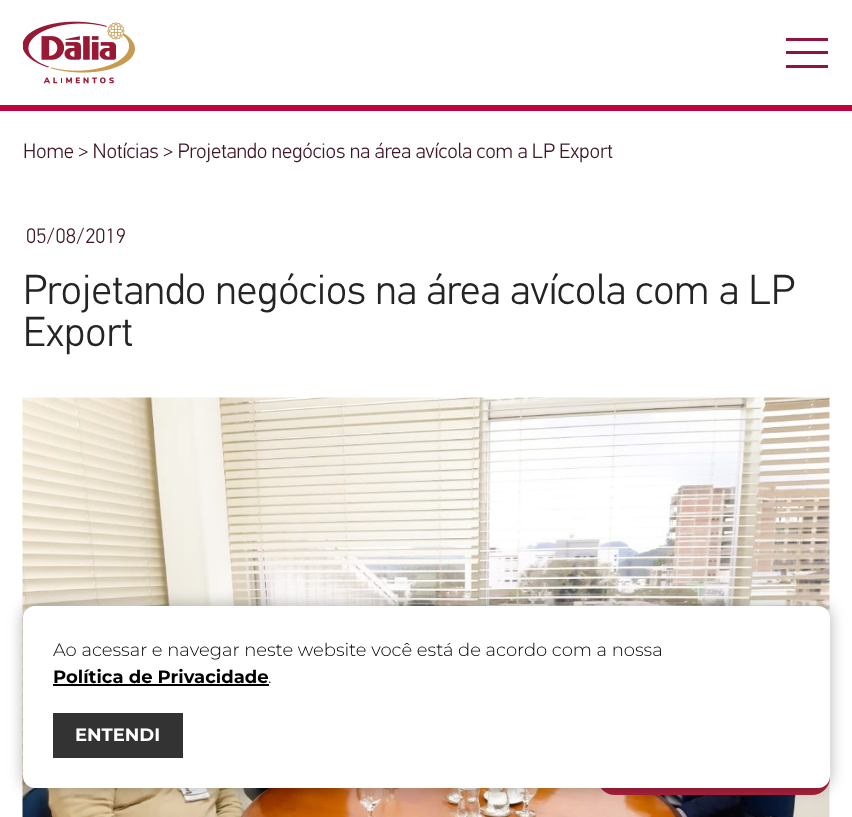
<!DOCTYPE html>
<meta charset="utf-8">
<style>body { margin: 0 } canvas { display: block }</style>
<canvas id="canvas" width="852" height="817"></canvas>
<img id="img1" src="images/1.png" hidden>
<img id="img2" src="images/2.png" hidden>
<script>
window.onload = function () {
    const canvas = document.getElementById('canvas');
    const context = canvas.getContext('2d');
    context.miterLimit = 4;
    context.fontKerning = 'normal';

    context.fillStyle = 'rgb(255, 255, 255)';
    context.fillRect(0, 0, 852, 817);
    context.drawImage(document.getElementById('img1'), 23, 21, 112, 63);
    context.fillStyle = 'rgb(146, 19, 62)';
    context.fillRect(786, 38, 42, 3);
    context.fillRect(786, 51, 42, 3);
    context.fillRect(786, 65, 42, 3);
    context.fillStyle = 'rgb(190, 4, 61)';
    context.fillRect(0, 105, 852, 6);
    context.drawImage(document.getElementById('img2'), 22, 397, 808, 420);
    context.fillStyle = 'rgb(168, 33, 61)';
    context.beginPath();
    context.roundRect(597, 729, 233, 66, 18);
    context.fill();
    context.fillStyle = 'rgba(0, 0, 0, 0.3)';
    context.filter = 'blur(7.5px)';
    context.beginPath();
    context.roundRect(23, 606, 807, 182, 12);
    context.fill();
    context.filter = 'none';
    context.fillStyle = 'rgb(255, 255, 255)';
    context.beginPath();
    context.roundRect(23, 606, 807, 182, 12);
    context.fill();
    context.fillStyle = 'rgb(0, 0, 0)';
    context.fillRect(53, 684, 216, 2);
    context.fillStyle = 'rgb(51, 51, 51)';
    context.fillRect(53, 713, 130, 45);
    context.letterSpacing = '-0.2px';
    context.font = '300 21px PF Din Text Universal';
    context.fillStyle = 'rgb(64, 24, 36)';
    context.fillText('Home > Notícias > Projetando negócios na área avícola com a LP Export', 23, 158);
    context.letterSpacing = '0px';
    context.fillText('05/08/2019', 26, 243);
    context.font = '300 42px PF Din Text Universal';
    context.fillStyle = 'rgb(36, 36, 36)';
    context.fillText('Projetando negócios na área avícola com a LP', 23, 304);
    context.fillText('Export', 23, 346);
    context.font = '300 18px Montserrat';
    context.fillStyle = 'rgb(0, 0, 0)';
    context.fillText('Ao acessar e navegar neste website você está de acordo com a nossa', 53, 656);
    context.font = 'bold 18px Montserrat';
    context.fillText('Política de Privacidade', 53, 683);
    context.font = '300 18px Montserrat';
    context.fillText('.', 268, 683);
    context.font = 'bold 18px Montserrat';
    context.fillStyle = 'rgb(255, 255, 255)';
    context.fillText('ENTENDI', 75, 741);
};
</script>
